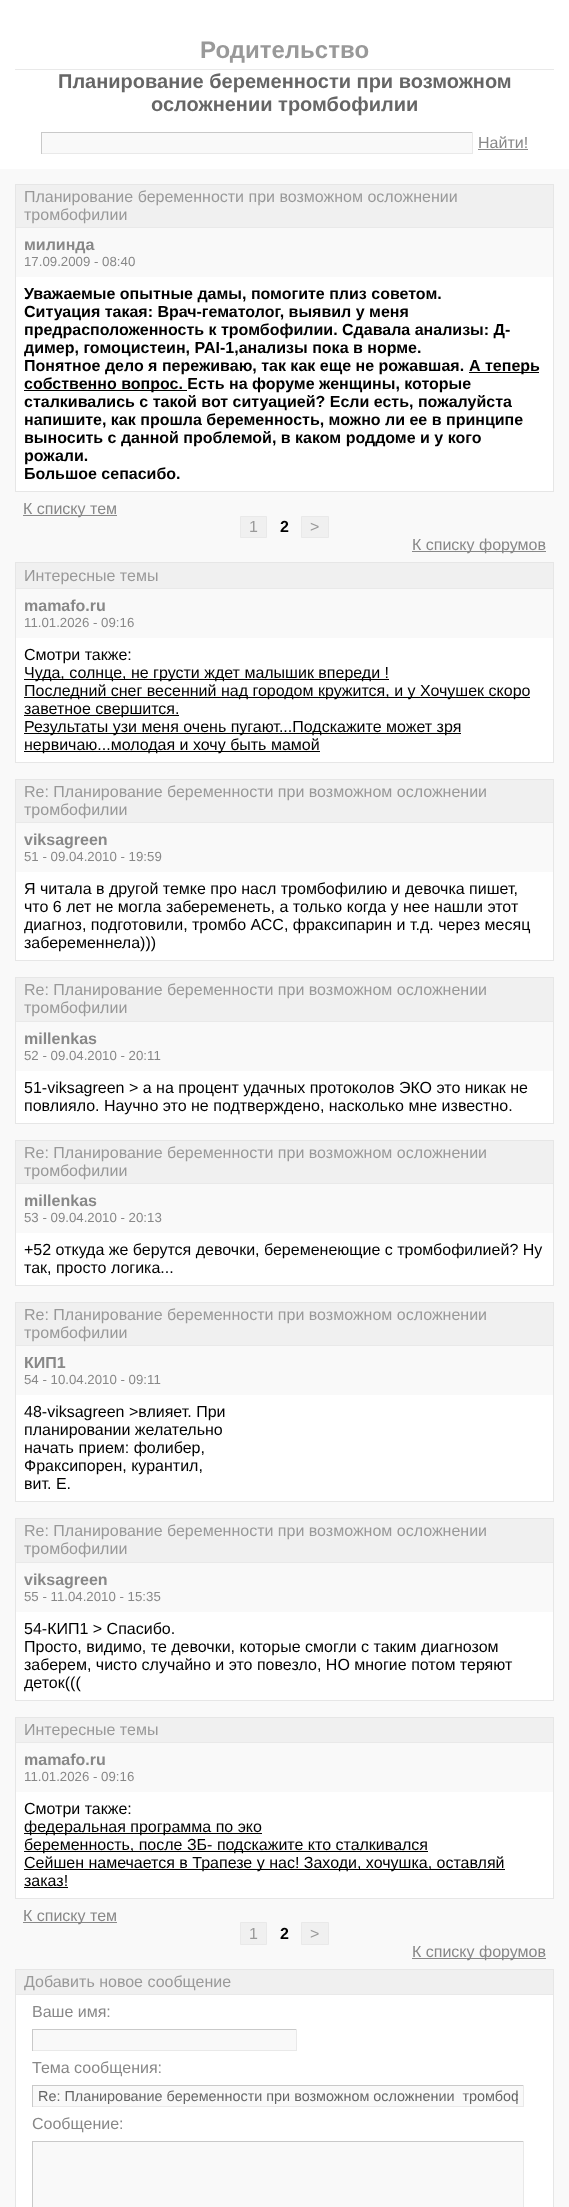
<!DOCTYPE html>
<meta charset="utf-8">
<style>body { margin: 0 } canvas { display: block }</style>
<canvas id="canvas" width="569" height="2207"></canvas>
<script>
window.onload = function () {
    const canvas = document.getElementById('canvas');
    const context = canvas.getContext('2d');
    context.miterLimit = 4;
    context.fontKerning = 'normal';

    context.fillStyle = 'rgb(255, 255, 255)';
    context.fillRect(0, 0, 569, 2207);
    context.fillStyle = 'rgb(233, 233, 233)';
    context.fillRect(15, 69, 539, 1);
    context.fillStyle = 'rgb(249, 249, 249)';
    context.fillRect(42, 133, 430, 20);
    context.fillStyle = 'rgb(201, 201, 201)';
    context.fillRect(41, 132, 432, 1);
    context.fillStyle = 'rgb(233, 233, 233)';
    context.fillRect(472, 132, 1, 22);
    context.fillRect(41, 153, 432, 1);
    context.fillStyle = 'rgb(201, 201, 201)';
    context.fillRect(41, 132, 1, 22);
    context.fillStyle = 'rgb(136, 136, 136)';
    context.fillRect(478, 149, 50, 1);
    context.fillStyle = 'rgb(249, 249, 249)';
    context.fillRect(0, 169, 569, 2038);
    context.fillStyle = 'rgb(255, 255, 255)';
    context.fillRect(16, 277, 537, 214);
    context.strokeStyle = 'rgb(230, 230, 230)';
    context.strokeRect(15.5, 184.5, 538, 307);
    context.fillStyle = 'rgb(240, 240, 240)';
    context.fillRect(16, 185, 537, 42);
    context.fillStyle = 'rgb(233, 233, 233)';
    context.fillRect(16, 227, 537, 1);
    context.fillStyle = 'rgb(0, 0, 0)';
    context.fillRect(469, 372, 70, 1);
    context.fillRect(24, 390, 163, 1);
    context.fillStyle = 'rgb(136, 136, 136)';
    context.fillRect(23, 515, 94, 1);
    context.fillStyle = 'rgb(240, 240, 240)';
    context.beginPath();
    context.rect(240.5, 516.5, 26, 21);
    context.fill();
    context.strokeStyle = 'rgb(233, 233, 233)';
    context.stroke();
    context.beginPath();
    context.rect(301.5, 516.5, 27, 21);
    context.fill();
    context.stroke();
    context.fillStyle = 'rgb(136, 136, 136)';
    context.fillRect(412, 551, 134, 1);
    context.fillStyle = 'rgb(255, 255, 255)';
    context.fillRect(16, 638, 537, 124);
    context.strokeStyle = 'rgb(230, 230, 230)';
    context.strokeRect(15.5, 562.5, 538, 200);
    context.fillStyle = 'rgb(240, 240, 240)';
    context.fillRect(16, 563, 537, 25);
    context.fillStyle = 'rgb(233, 233, 233)';
    context.fillRect(16, 588, 537, 1);
    context.fillStyle = 'rgb(0, 0, 0)';
    context.fillRect(24, 679, 365, 1);
    context.fillRect(24, 697, 506, 1);
    context.fillRect(24, 715, 155, 1);
    context.fillRect(24, 733, 437, 1);
    context.fillRect(24, 751, 296, 1);
    context.fillStyle = 'rgb(255, 255, 255)';
    context.fillRect(16, 872, 537, 88);
    context.strokeRect(15.5, 779.5, 538, 181);
    context.fillStyle = 'rgb(240, 240, 240)';
    context.fillRect(16, 780, 537, 42);
    context.fillStyle = 'rgb(233, 233, 233)';
    context.fillRect(16, 822, 537, 1);
    context.fillStyle = 'rgb(255, 255, 255)';
    context.fillRect(16, 1071, 537, 52);
    context.strokeRect(15.5, 977.5, 538, 146);
    context.fillStyle = 'rgb(240, 240, 240)';
    context.fillRect(16, 978, 537, 43);
    context.fillStyle = 'rgb(233, 233, 233)';
    context.fillRect(16, 1021, 537, 1);
    context.fillStyle = 'rgb(255, 255, 255)';
    context.fillRect(16, 1233, 537, 52);
    context.strokeRect(15.5, 1140.5, 538, 145);
    context.fillStyle = 'rgb(240, 240, 240)';
    context.fillRect(16, 1141, 537, 42);
    context.fillStyle = 'rgb(233, 233, 233)';
    context.fillRect(16, 1183, 537, 1);
    context.fillStyle = 'rgb(255, 255, 255)';
    context.fillRect(16, 1395, 537, 106);
    context.strokeRect(15.5, 1302.5, 538, 199);
    context.fillStyle = 'rgb(240, 240, 240)';
    context.fillRect(16, 1303, 537, 42);
    context.fillStyle = 'rgb(233, 233, 233)';
    context.fillRect(16, 1345, 537, 1);
    context.fillStyle = 'rgb(255, 255, 255)';
    context.fillRect(16, 1612, 537, 88);
    context.strokeRect(15.5, 1518.5, 538, 182);
    context.fillStyle = 'rgb(240, 240, 240)';
    context.fillRect(16, 1519, 537, 43);
    context.fillStyle = 'rgb(233, 233, 233)';
    context.fillRect(16, 1562, 537, 1);
    context.fillStyle = 'rgb(255, 255, 255)';
    context.fillRect(16, 1792, 537, 106);
    context.strokeRect(15.5, 1717.5, 538, 181);
    context.fillStyle = 'rgb(240, 240, 240)';
    context.fillRect(16, 1718, 537, 24);
    context.fillStyle = 'rgb(233, 233, 233)';
    context.fillRect(16, 1742, 537, 1);
    context.fillStyle = 'rgb(0, 0, 0)';
    context.fillRect(24, 1833, 238, 1);
    context.fillRect(24, 1851, 404, 1);
    context.fillRect(24, 1869, 481, 1);
    context.fillRect(24, 1887, 44, 1);
    context.fillStyle = 'rgb(136, 136, 136)';
    context.fillRect(23, 1922, 94, 1);
    context.fillStyle = 'rgb(240, 240, 240)';
    context.beginPath();
    context.rect(240.5, 1922.5, 26, 22);
    context.fill();
    context.strokeStyle = 'rgb(233, 233, 233)';
    context.stroke();
    context.beginPath();
    context.rect(301.5, 1922.5, 27, 22);
    context.fill();
    context.stroke();
    context.fillStyle = 'rgb(136, 136, 136)';
    context.fillRect(412, 1958, 134, 1);
    context.fillStyle = 'rgb(255, 255, 255)';
    context.fillRect(16, 1995, 537, 212);
    context.strokeStyle = 'rgb(230, 230, 230)';
    context.strokeRect(15.5, 1969.5, 538, 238);
    context.fillStyle = 'rgb(240, 240, 240)';
    context.fillRect(16, 1970, 537, 24);
    context.fillStyle = 'rgb(233, 233, 233)';
    context.fillRect(16, 1994, 537, 1);
    context.fillStyle = 'rgb(249, 249, 249)';
    context.fillRect(33, 2030, 263, 20);
    context.fillStyle = 'rgb(201, 201, 201)';
    context.fillRect(32, 2029, 265, 1);
    context.fillStyle = 'rgb(233, 233, 233)';
    context.fillRect(296, 2029, 1, 22);
    context.fillRect(32, 2050, 265, 1);
    context.fillStyle = 'rgb(201, 201, 201)';
    context.fillRect(32, 2029, 1, 22);
    context.fillStyle = 'rgb(249, 249, 249)';
    context.fillRect(33, 2086, 490, 20);
    context.fillStyle = 'rgb(201, 201, 201)';
    context.fillRect(32, 2085, 492, 1);
    context.fillStyle = 'rgb(233, 233, 233)';
    context.fillRect(523, 2085, 1, 22);
    context.fillRect(32, 2106, 492, 1);
    context.fillStyle = 'rgb(201, 201, 201)';
    context.fillRect(32, 2085, 1, 22);
    context.fillStyle = 'rgb(249, 249, 249)';
    context.fillRect(33, 2142, 490, 65);
    context.fillStyle = 'rgb(201, 201, 201)';
    context.fillRect(32, 2141, 492, 1);
    context.fillStyle = 'rgb(233, 233, 233)';
    context.fillRect(523, 2141, 1, 66);
    context.fillStyle = 'rgb(201, 201, 201)';
    context.fillRect(32, 2141, 1, 66);
    context.font = 'bold 24px Liberation Sans';
    context.fillStyle = 'rgb(153, 153, 153)';
    context.fillText('Родительство', 200, 58);
    context.font = 'bold 20px Liberation Sans';
    context.fillStyle = 'rgb(102, 102, 102)';
    context.fillText('Планирование беременности при возможном', 58, 88);
    context.fillText('осложнении тромбофилии', 151, 111);
    context.font = '16px Liberation Sans';
    context.fillStyle = 'rgb(136, 136, 136)';
    context.fillText('Найти!', 478, 148);
    context.fillStyle = 'rgb(153, 153, 153)';
    context.fillText('Планирование беременности при возможном осложнении', 24, 202);
    context.fillText('тромбофилии', 24, 220);
    context.font = 'bold 16px Liberation Sans';
    context.fillStyle = 'rgb(136, 136, 136)';
    context.fillText('милинда', 24, 250);
    context.font = '13.25px Liberation Sans';
    context.fillText('17.09.2009 - 08:40', 24, 266);
    context.font = 'bold 16px Liberation Sans';
    context.fillStyle = 'rgb(0, 0, 0)';
    context.fillText('Уважаемые опытные дамы, помогите плиз советом.', 24, 299);
    context.fillText('Ситуация такая: Врач-гематолог, выявил у меня', 24, 317);
    context.fillText('предрасположенность к тромбофилии. Сдавала анализы: Д-', 24, 335);
    context.fillText('димер, гомоцистеин, PAI-1,анализы пока в норме.', 24, 353);
    context.fillText('Понятное дело я переживаю, так как еще не рожавшая.', 24, 371);
    context.fillText('А теперь', 469, 371);
    context.fillText('собственно вопрос. Есть на форуме женщины, которые', 24, 389);
    context.fillText('сталкивались с такой вот ситуацией? Если есть, пожалуйста', 24, 407);
    context.fillText('напишите, как прошла беременность, можно ли ее в принципе', 24, 425);
    context.fillText('выносить с данной проблемой, в каком роддоме и у кого', 24, 443);
    context.fillText('рожали.', 24, 461);
    context.fillText('Большое сепасибо.', 24, 479);
    context.font = '16px Liberation Sans';
    context.fillStyle = 'rgb(136, 136, 136)';
    context.fillText('К списку тем', 23, 514);
    context.fillStyle = 'rgb(153, 153, 153)';
    context.fillText('1', 249, 532);
    context.font = 'bold 16px Liberation Sans';
    context.fillStyle = 'rgb(0, 0, 0)';
    context.fillText('2', 280, 532);
    context.font = '16px Liberation Sans';
    context.fillStyle = 'rgb(153, 153, 153)';
    context.fillText('>', 310, 532);
    context.fillStyle = 'rgb(136, 136, 136)';
    context.fillText('К списку форумов', 412, 550);
    context.fillStyle = 'rgb(153, 153, 153)';
    context.fillText('Интересные темы', 24, 581);
    context.font = 'bold 16px Liberation Sans';
    context.fillStyle = 'rgb(136, 136, 136)';
    context.fillText('mamafo.ru', 24, 611);
    context.font = '13.25px Liberation Sans';
    context.fillText('11.01.2026 - 09:16', 24, 627);
    context.font = '16px Liberation Sans';
    context.fillStyle = 'rgb(0, 0, 0)';
    context.fillText('Смотри также:', 24, 660);
    context.fillText('Чуда, солнце, не грусти ждет малышик впереди !', 24, 678);
    context.fillText('Последний снег весенний над городом кружится, и у Хочушек скоро', 24, 696);
    context.fillText('заветное свершится.', 24, 714);
    context.fillText('Результаты узи меня очень пугают...Подскажите может зря', 24, 732);
    context.fillText('нервичаю...молодая и хочу быть мамой', 24, 750);
    context.fillStyle = 'rgb(153, 153, 153)';
    context.fillText('Re: Планирование беременности при возможном осложнении', 24, 797);
    context.fillText('тромбофилии', 24, 815);
    context.font = 'bold 16px Liberation Sans';
    context.fillStyle = 'rgb(136, 136, 136)';
    context.fillText('viksagreen', 24, 845);
    context.font = '13.25px Liberation Sans';
    context.fillText('51 - 09.04.2010 - 19:59', 24, 861);
    context.font = '16px Liberation Sans';
    context.fillStyle = 'rgb(0, 0, 0)';
    context.fillText('Я читала в другой темке про насл тромбофилию и девочка пишет,', 24, 894);
    context.fillText('что 6 лет не могла забеременеть, а только когда у нее нашли этот', 24, 912);
    context.fillText('диагноз, подготовили, тромбо АСС, фраксипарин и т.д. через месяц', 24, 930);
    context.fillText('забеременнела)))', 24, 948);
    context.fillStyle = 'rgb(153, 153, 153)';
    context.fillText('Re: Планирование беременности при возможном осложнении', 24, 995);
    context.fillText('тромбофилии', 24, 1013);
    context.font = 'bold 16px Liberation Sans';
    context.fillStyle = 'rgb(136, 136, 136)';
    context.fillText('millenkas', 24, 1044);
    context.font = '13.25px Liberation Sans';
    context.fillText('52 - 09.04.2010 - 20:11', 24, 1060);
    context.font = '16px Liberation Sans';
    context.fillStyle = 'rgb(0, 0, 0)';
    context.fillText('51-viksagreen > а на процент удачных протоколов ЭКО это никак не', 24, 1093);
    context.fillText('повлияло. Научно это не подтверждено, насколько мне известно.', 24, 1111);
    context.fillStyle = 'rgb(153, 153, 153)';
    context.fillText('Re: Планирование беременности при возможном осложнении', 24, 1158);
    context.fillText('тромбофилии', 24, 1176);
    context.font = 'bold 16px Liberation Sans';
    context.fillStyle = 'rgb(136, 136, 136)';
    context.fillText('millenkas', 24, 1206);
    context.font = '13.25px Liberation Sans';
    context.fillText('53 - 09.04.2010 - 20:13', 24, 1222);
    context.font = '16px Liberation Sans';
    context.fillStyle = 'rgb(0, 0, 0)';
    context.fillText('+52 откуда же берутся девочки, беременеющие с тромбофилией? Ну', 24, 1255);
    context.fillText('так, просто логика...', 24, 1273);
    context.fillStyle = 'rgb(153, 153, 153)';
    context.fillText('Re: Планирование беременности при возможном осложнении', 24, 1320);
    context.fillText('тромбофилии', 24, 1338);
    context.font = 'bold 16px Liberation Sans';
    context.fillStyle = 'rgb(136, 136, 136)';
    context.fillText('КИП1', 24, 1368);
    context.font = '13.25px Liberation Sans';
    context.fillText('54 - 10.04.2010 - 09:11', 24, 1384);
    context.font = '16px Liberation Sans';
    context.fillStyle = 'rgb(0, 0, 0)';
    context.fillText('48-viksagreen >влияет. При', 24, 1417);
    context.fillText('планировании желательно', 24, 1435);
    context.fillText('начать прием: фолибер,', 24, 1453);
    context.fillText('Фраксипорен, курантил,', 24, 1471);
    context.fillText('вит. Е.', 24, 1489);
    context.fillStyle = 'rgb(153, 153, 153)';
    context.fillText('Re: Планирование беременности при возможном осложнении', 24, 1536);
    context.fillText('тромбофилии', 24, 1554);
    context.font = 'bold 16px Liberation Sans';
    context.fillStyle = 'rgb(136, 136, 136)';
    context.fillText('viksagreen', 24, 1585);
    context.font = '13.25px Liberation Sans';
    context.fillText('55 - 11.04.2010 - 15:35', 24, 1601);
    context.font = '16px Liberation Sans';
    context.fillStyle = 'rgb(0, 0, 0)';
    context.fillText('54-КИП1 > Спасибо.', 24, 1634);
    context.fillText('Просто, видимо, те девочки, которые смогли с таким диагнозом', 24, 1652);
    context.fillText('заберем, чисто случайно и это повезло, НО многие потом теряют', 24, 1670);
    context.fillText('деток(((', 24, 1688);
    context.fillStyle = 'rgb(153, 153, 153)';
    context.fillText('Интересные темы', 24, 1735);
    context.font = 'bold 16px Liberation Sans';
    context.fillStyle = 'rgb(136, 136, 136)';
    context.fillText('mamafo.ru', 24, 1765);
    context.font = '13.25px Liberation Sans';
    context.fillText('11.01.2026 - 09:16', 24, 1781);
    context.font = '16px Liberation Sans';
    context.fillStyle = 'rgb(0, 0, 0)';
    context.fillText('Смотри также:', 24, 1814);
    context.fillText('федеральная программа по эко', 24, 1832);
    context.fillText('беременность, после ЗБ- подскажите кто сталкивался', 24, 1850);
    context.fillText('Сейшен намечается в Трапезе у нас! Заходи, хочушка, оставляй', 24, 1868);
    context.fillText('заказ!', 24, 1886);
    context.fillStyle = 'rgb(136, 136, 136)';
    context.fillText('К списку тем', 23, 1921);
    context.fillStyle = 'rgb(153, 153, 153)';
    context.fillText('1', 249, 1939);
    context.font = 'bold 16px Liberation Sans';
    context.fillStyle = 'rgb(0, 0, 0)';
    context.fillText('2', 280, 1939);
    context.font = '16px Liberation Sans';
    context.fillStyle = 'rgb(153, 153, 153)';
    context.fillText('>', 310, 1939);
    context.fillStyle = 'rgb(136, 136, 136)';
    context.fillText('К списку форумов', 412, 1957);
    context.fillStyle = 'rgb(153, 153, 153)';
    context.fillText('Добавить новое сообщение', 24, 1987);
    context.fillStyle = 'rgb(136, 136, 136)';
    context.fillText('Ваше имя:', 32, 2017);
    context.fillText('Тема сообщения:', 32, 2073);
    context.save();
    context.beginPath();
    context.rect(38, 2088, 480, 16);
    context.clip();
    context.font = '14.4px Liberation Sans';
    context.fillStyle = 'rgb(102, 102, 102)';
    context.fillText('Re: Планирование беременности при возможном осложнении  тромбоф', 38, 2101);
    context.restore();
    context.fillText('Сообщение:', 32, 2129);
};
</script>
